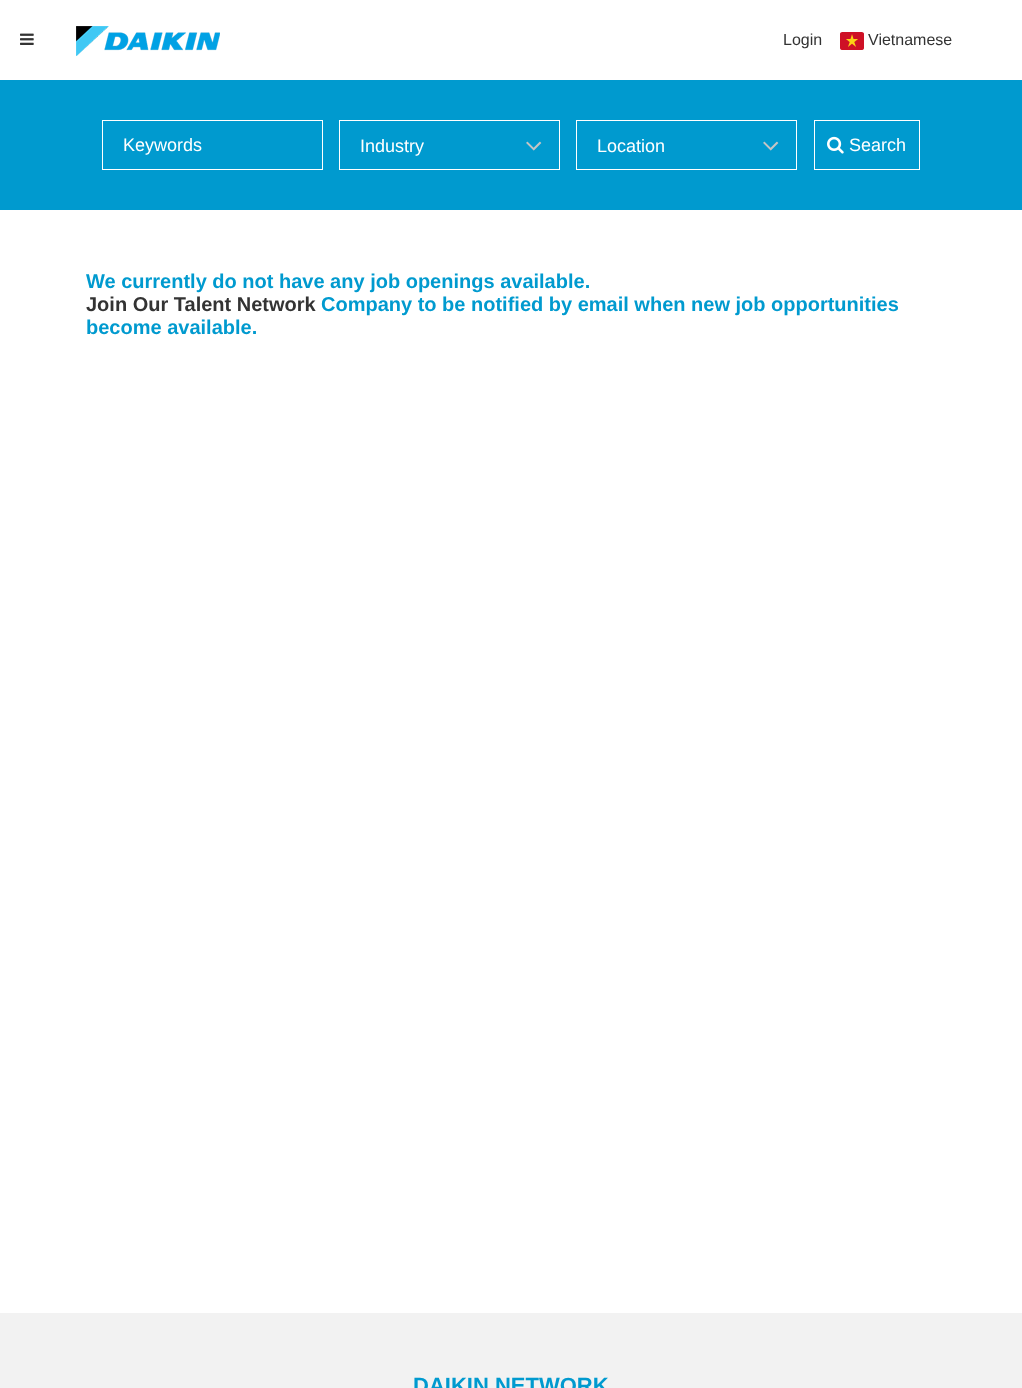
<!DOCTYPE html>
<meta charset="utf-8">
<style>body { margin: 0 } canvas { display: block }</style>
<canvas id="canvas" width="1022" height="1388"></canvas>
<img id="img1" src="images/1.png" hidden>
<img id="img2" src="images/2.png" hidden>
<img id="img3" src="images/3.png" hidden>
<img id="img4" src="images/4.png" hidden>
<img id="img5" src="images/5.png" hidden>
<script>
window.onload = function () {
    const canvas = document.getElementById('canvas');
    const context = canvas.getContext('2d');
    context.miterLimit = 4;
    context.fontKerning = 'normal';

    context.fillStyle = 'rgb(255, 255, 255)';
    context.fillRect(0, 0, 1022, 1388);
    context.drawImage(document.getElementById('img1'), 20, 33, 14, 12);
    context.drawImage(document.getElementById('img2'), 76, 26, 144, 30);
    context.drawImage(document.getElementById('img3'), 840, 32, 24, 18);
    context.fillStyle = 'rgb(0, 154, 207)';
    context.fillRect(0, 80, 1022, 130);
    context.strokeStyle = 'rgb(255, 255, 255)';
    context.strokeRect(102.5, 120.5, 220, 49);
    context.strokeRect(339.5, 120.5, 220, 49);
    context.drawImage(document.getElementById('img4'), 526, 141, 16, 10);
    context.strokeRect(576.5, 120.5, 220, 49);
    context.drawImage(document.getElementById('img4'), 763, 141, 16, 10);
    context.strokeRect(814.5, 120.5, 105, 49);
    context.drawImage(document.getElementById('img5'), 827, 136, 17, 18);
    context.fillStyle = 'rgb(242, 242, 242)';
    context.fillRect(0, 1313, 1022, 75);
    context.font = '16px Liberation Sans';
    context.fillStyle = 'rgb(51, 51, 51)';
    context.fillText('Login', 783, 45);
    context.fillText('Vietnamese', 868, 45);
    context.font = '18px Liberation Sans';
    context.fillStyle = 'rgb(255, 255, 255)';
    context.fillText('Keywords', 123, 151);
    context.fillText('Industry', 360, 152);
    context.fillText('Location', 597, 152);
    context.fillText('Search', 849, 151);
    context.font = 'bold 20px Liberation Sans';
    context.fillStyle = 'rgb(0, 154, 207)';
    context.fillText('We currently do not have any job openings available.', 86, 288);
    context.fillStyle = 'rgb(51, 51, 51)';
    context.fillText('Join Our Talent Network', 86, 311);
    context.fillStyle = 'rgb(0, 154, 207)';
    context.fillText('Company to be notified by email when new job opportunities', 321, 311);
    context.fillText('become available.', 86, 334);
    context.font = 'bold 22px Liberation Sans';
    context.fillText('DAIKIN NETWORK', 413, 1393);
};
</script>
